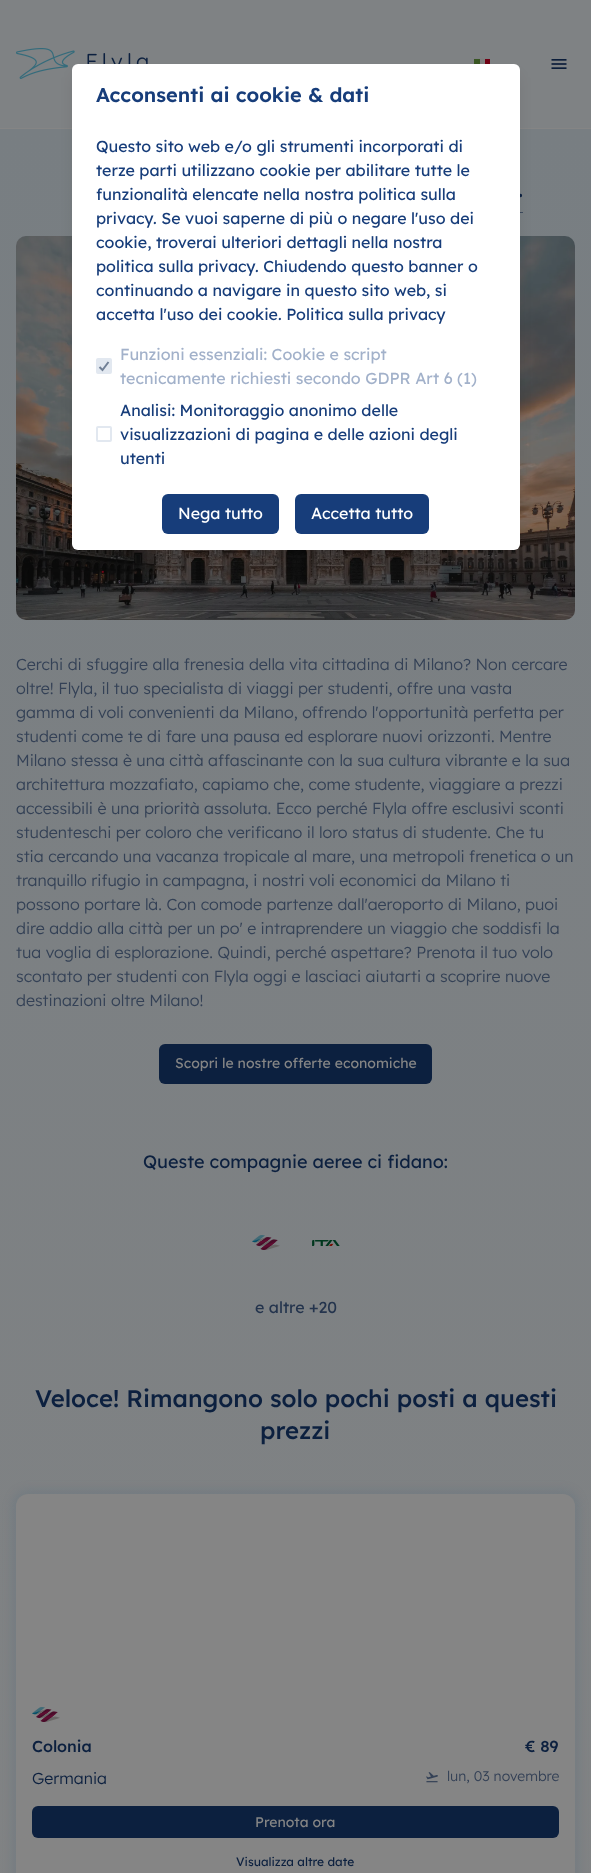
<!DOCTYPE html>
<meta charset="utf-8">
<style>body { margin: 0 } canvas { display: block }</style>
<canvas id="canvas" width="591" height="1873"></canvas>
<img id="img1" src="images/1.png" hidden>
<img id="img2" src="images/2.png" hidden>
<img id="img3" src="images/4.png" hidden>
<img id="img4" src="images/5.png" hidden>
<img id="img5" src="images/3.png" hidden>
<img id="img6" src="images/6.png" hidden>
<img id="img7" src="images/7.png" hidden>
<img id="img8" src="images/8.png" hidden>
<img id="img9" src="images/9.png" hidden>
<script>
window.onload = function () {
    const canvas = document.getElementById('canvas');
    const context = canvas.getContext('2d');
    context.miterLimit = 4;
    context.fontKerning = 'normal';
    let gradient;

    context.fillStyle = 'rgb(255, 255, 255)';
    context.fillRect(0, 0, 591, 1873);
    context.fillStyle = 'rgb(127, 130, 132)';
    context.fillRect(0, 0, 591, 128);
    context.fillStyle = 'rgb(133, 133, 133)';
    context.fillRect(0, 128, 591, 1);
    context.drawImage(document.getElementById('img1'), 16, 48, 132, 31);
    context.drawImage(document.getElementById('img2'), 474, 58, 16, 6);
    gradient = context.createLinearGradient(295, 129, 296, 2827);
    gradient.addColorStop(0, 'rgb(120, 126, 130)');
    gradient.addColorStop(1, 'rgb(133, 133, 133)');
    context.fillStyle = gradient;
    context.fillRect(0, 129, 591, 1744);
    context.drawImage(document.getElementById('img3'), 520, 212, 3, 1);
    context.drawImage(document.getElementById('img4'), 16, 236, 559, 384);
    context.fillStyle = 'rgba(0, 0, 0, 0.1)';
    context.filter = 'blur(7.5px)';
    context.beginPath();
    context.roundRect(75, 77, 442, 480, 3);
    context.fill();
    context.filter = 'none';
    context.drawImage(document.getElementById('img5'), 551, 59, 16, 10);
    context.fillStyle = 'rgb(12, 32, 63)';
    context.beginPath();
    context.roundRect(159, 1044, 273, 40, 6);
    context.fill();
    context.drawImage(document.getElementById('img6'), 252, 1235, 28, 15);
    context.drawImage(document.getElementById('img7'), 312, 1240, 28, 6);
    context.fillStyle = 'rgba(72, 101, 121, 0.2)';
    context.filter = 'blur(5px)';
    context.beginPath();
    context.roundRect(12, 1490, 567, 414, 16);
    context.fill();
    context.filter = 'none';
    context.fillStyle = 'rgb(133, 133, 133)';
    context.beginPath();
    context.roundRect(16, 1494, 559, 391, 12);
    context.fill();
    context.drawImage(document.getElementById('img8'), 32, 1707, 28, 15);
    context.drawImage(document.getElementById('img9'), 426, 1772, 12, 11);
    context.fillStyle = 'rgb(12, 32, 63)';
    context.beginPath();
    context.roundRect(32, 1806, 527, 32, 6);
    context.fill();
    context.font = '600 20px Lexend';
    context.fillText('.', 518, 197);
    context.fillStyle = 'rgb(255, 255, 255)';
    context.beginPath();
    context.roundRect(72, 64, 448, 486, 6);
    context.fill();
    context.fillStyle = 'rgb(23, 61, 122)';
    context.beginPath();
    context.roundRect(295, 494, 134, 40, 6);
    context.fill();
    context.font = '16px Lexend';
    context.fillStyle = 'rgb(255, 255, 255)';
    context.fillText('Accetta tutto', 311, 519);
    context.fillStyle = 'rgb(23, 61, 122)';
    context.beginPath();
    context.roundRect(162, 494, 117, 40, 6);
    context.fill();
    context.fillStyle = 'rgb(255, 255, 255)';
    context.fillText('Nega tutto', 178, 519);
    context.fillStyle = 'rgb(23, 61, 122)';
    context.fillText('utenti', 120, 464);
    context.fillText('visualizzazioni di pagina e delle azioni degli', 120, 440);
    context.fillText('Analisi: Monitoraggio anonimo delle', 120, 416);
    context.beginPath();
    context.roundRect(97, 427, 14, 14, 1);
    context.strokeStyle = 'rgb(226, 232, 240)';
    context.lineWidth = 2;
    context.stroke();
    context.fillStyle = 'rgb(162, 177, 202)';
    context.fillText('tecnicamente richiesti secondo GDPR Art 6 (1)', 120, 384);
    context.fillText('Funzioni essenziali: Cookie e script', 120, 360);
    context.fillStyle = 'rgb(226, 232, 240)';
    context.beginPath();
    context.roundRect(97, 359, 14, 14, 1);
    context.fill();
    context.stroke();
    context.beginPath();
    context.moveTo(99.5, 367);
    context.lineTo(102.5, 370);
    context.lineTo(108.5, 362);
    context.strokeStyle = 'rgb(113, 128, 150)';
    context.stroke();
    context.fillStyle = 'rgb(23, 61, 122)';
    context.fillText('accetta l\'uso dei cookie. Politica sulla privacy', 96, 320);
    context.fillText('continuando a navigare in questo sito web, si', 96, 296);
    context.fillText('politica sulla privacy. Chiudendo questo banner o', 96, 272);
    context.fillText('cookie, troverai ulteriori dettagli nella nostra', 96, 248);
    context.fillText('privacy. Se vuoi saperne di più o negare l\'uso dei', 96, 224);
    context.fillText('funzionalità elencate nella nostra politica sulla', 96, 200);
    context.fillText('terze parti utilizzano cookie per abilitare tutte le', 96, 176);
    context.fillText('Questo sito web e/o gli strumenti incorporati di', 96, 152);
    context.font = '600 20px Lexend';
    context.fillText('Acconsenti ai cookie & dati', 96, 102);
    context.font = '300 16px Lexend';
    context.fillStyle = 'rgb(52, 65, 86)';
    context.fillText('Cerchi di sfuggire alla frenesia della vita cittadina di Milano? Non cercare', 16, 670);
    context.fillText('oltre! Flyla, il tuo specialista di viaggi per studenti, offre una vasta', 16, 694);
    context.fillText('gamma di voli convenienti da Milano, offrendo l\'opportunità perfetta per', 16, 718);
    context.fillText('studenti come te di fare una pausa ed esplorare nuovi orizzonti. Mentre', 16, 742);
    context.fillText('Milano stessa è una città affascinante con la sua cultura vibrante e la sua', 16, 766);
    context.fillText('architettura mozzafiato, capiamo che, come studente, viaggiare a prezzi', 16, 790);
    context.fillText('accessibili è una priorità assoluta. Ecco perché Flyla offre esclusivi sconti', 16, 814);
    context.fillText('studenteschi per coloro che verificano il loro status di studente. Che tu', 16, 838);
    context.fillText('stia cercando una vacanza tropicale al mare, una metropoli frenetica o un', 16, 862);
    context.fillText('tranquillo rifugio in campagna, i nostri voli economici da Milano ti', 16, 886);
    context.fillText('possono portare là. Con comode partenze dall\'aeroporto di Milano, puoi', 16, 910);
    context.fillText('dire addio alla città per un po\' e intraprendere un viaggio che soddisfi la', 16, 934);
    context.fillText('tua voglia di esplorazione. Quindi, perché aspettare? Prenota il tuo volo', 16, 958);
    context.fillText('scontato per studenti con Flyla oggi e lasciaci aiutarti a scoprire nuove', 16, 982);
    context.fillText('destinazioni oltre Milano!', 16, 1006);
    context.font = '14px Lexend';
    context.fillStyle = 'rgb(133, 133, 133)';
    context.fillText('Scopri le nostre offerte economiche', 175, 1068);
    context.font = '18px Lexend';
    context.fillStyle = 'rgb(12, 32, 63)';
    context.fillText('Queste compagnie aeree ci fidano:', 143, 1168);
    context.font = '16px Lexend';
    context.fillStyle = 'rgb(36, 52, 77)';
    context.fillText('e altre +20', 255, 1313);
    context.font = '500 24px Lexend';
    context.fillStyle = 'rgb(12, 32, 63)';
    context.fillText('Veloce! Rimangono solo pochi posti a questi', 35, 1407);
    context.fillText('prezzi', 260, 1439);
    context.font = '500 16px Lexend';
    context.fillText('Colonia', 32, 1752);
    context.fillText('€ 89', 525, 1752);
    context.font = '300 16px Lexend';
    context.fillText('Germania', 32, 1784);
    context.font = '300 14px Lexend';
    context.fillStyle = 'rgb(52, 65, 86)';
    context.fillText('lun, 03 novembre', 447, 1781);
    context.font = '14px Lexend';
    context.fillStyle = 'rgb(133, 133, 133)';
    context.fillText('Prenota ora', 255, 1827);
    context.font = '12px Lexend';
    context.fillStyle = 'rgb(12, 32, 63)';
    context.fillText('Visualizza altre date', 236, 1866);
};
</script>
